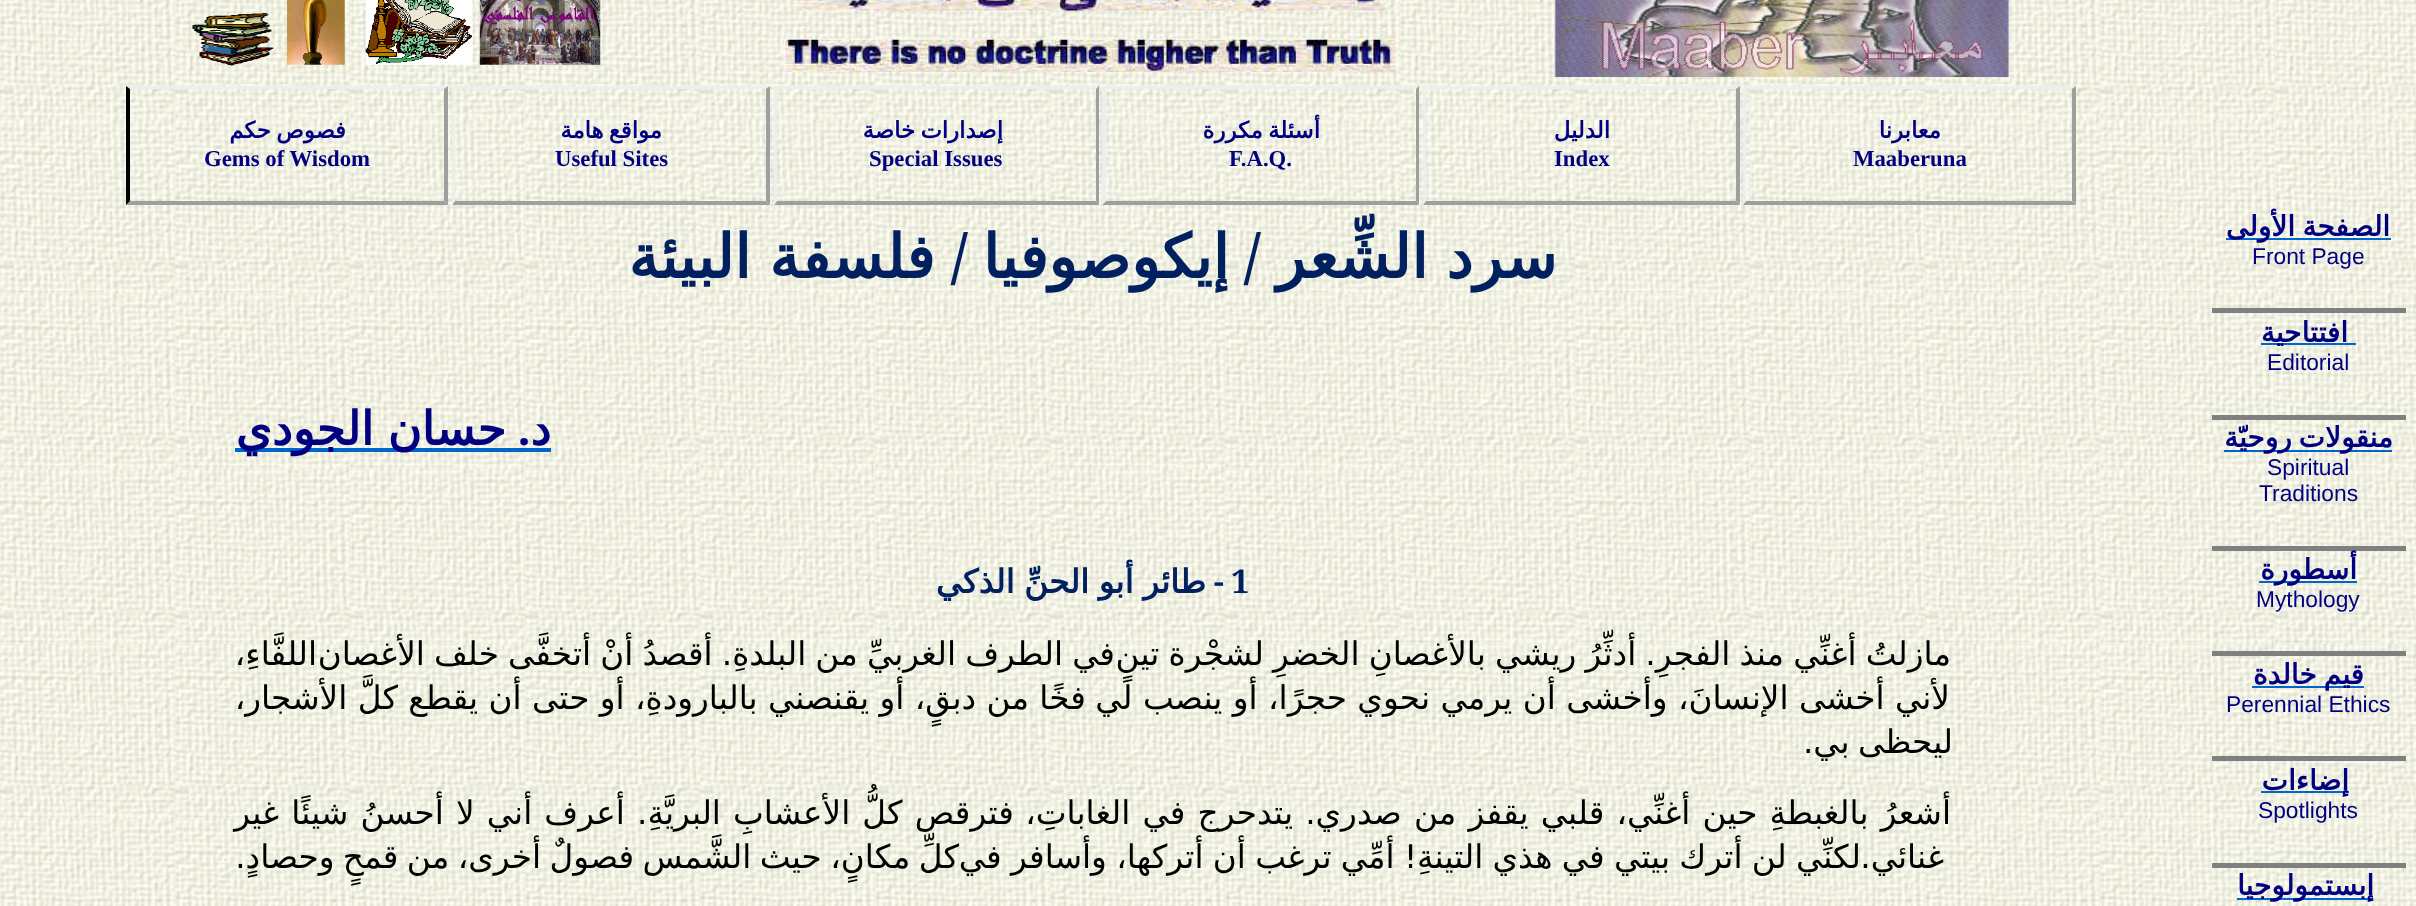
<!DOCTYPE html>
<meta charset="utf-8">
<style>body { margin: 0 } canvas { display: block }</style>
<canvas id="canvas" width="2416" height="906"></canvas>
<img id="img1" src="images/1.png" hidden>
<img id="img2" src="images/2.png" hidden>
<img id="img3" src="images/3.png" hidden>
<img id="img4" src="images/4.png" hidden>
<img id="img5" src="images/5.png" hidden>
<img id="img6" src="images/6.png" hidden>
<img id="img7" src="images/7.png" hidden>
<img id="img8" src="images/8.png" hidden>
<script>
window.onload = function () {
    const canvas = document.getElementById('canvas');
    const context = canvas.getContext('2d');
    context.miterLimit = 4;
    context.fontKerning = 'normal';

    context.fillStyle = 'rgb(255, 255, 255)';
    context.fillRect(0, 0, 2416, 906);
    context.drawImage(document.getElementById('img1'), 0, 0, 2416, 906);
    context.drawImage(document.getElementById('img2'), 1554, 0, 455, 77);
    context.drawImage(document.getElementById('img3'), 794, 0, 592, 11);
    context.drawImage(document.getElementById('img4'), 784, 38, 613, 34);
    context.drawImage(document.getElementById('img5'), 479, 0, 122, 65);
    context.drawImage(document.getElementById('img6'), 365, 0, 108, 65);
    context.drawImage(document.getElementById('img7'), 287, 0, 58, 65);
    context.drawImage(document.getElementById('img8'), 192, 13, 82, 53);
    context.fillStyle = 'rgb(238, 238, 238)';
    context.beginPath();
    context.moveTo(1743, 86);
    context.lineTo(2076, 86);
    context.lineTo(2072, 89);
    context.lineTo(1746, 89);
    context.closePath();
    context.fill();
    context.fillStyle = 'rgb(159, 159, 159)';
    context.beginPath();
    context.moveTo(2076, 86);
    context.lineTo(2076, 205);
    context.lineTo(2072, 201);
    context.lineTo(2072, 89);
    context.closePath();
    context.fill();
    context.beginPath();
    context.moveTo(2076, 205);
    context.lineTo(1743, 205);
    context.lineTo(1746, 201);
    context.lineTo(2072, 201);
    context.closePath();
    context.fill();
    context.fillStyle = 'rgb(238, 238, 238)';
    context.beginPath();
    context.moveTo(1743, 205);
    context.lineTo(1743, 86);
    context.lineTo(1746, 89);
    context.lineTo(1746, 201);
    context.closePath();
    context.fill();
    context.beginPath();
    context.moveTo(1423, 86);
    context.lineTo(1740, 86);
    context.lineTo(1736, 89);
    context.lineTo(1426, 89);
    context.closePath();
    context.fill();
    context.fillStyle = 'rgb(159, 159, 159)';
    context.beginPath();
    context.moveTo(1740, 86);
    context.lineTo(1740, 205);
    context.lineTo(1736, 201);
    context.lineTo(1736, 89);
    context.closePath();
    context.fill();
    context.beginPath();
    context.moveTo(1740, 205);
    context.lineTo(1423, 205);
    context.lineTo(1426, 201);
    context.lineTo(1736, 201);
    context.closePath();
    context.fill();
    context.fillStyle = 'rgb(238, 238, 238)';
    context.beginPath();
    context.moveTo(1423, 205);
    context.lineTo(1423, 86);
    context.lineTo(1426, 89);
    context.lineTo(1426, 201);
    context.closePath();
    context.fill();
    context.beginPath();
    context.moveTo(1102, 86);
    context.lineTo(1419, 86);
    context.lineTo(1416, 89);
    context.lineTo(1106, 89);
    context.closePath();
    context.fill();
    context.fillStyle = 'rgb(159, 159, 159)';
    context.beginPath();
    context.moveTo(1419, 86);
    context.lineTo(1419, 205);
    context.lineTo(1416, 201);
    context.lineTo(1416, 89);
    context.closePath();
    context.fill();
    context.beginPath();
    context.moveTo(1419, 205);
    context.lineTo(1102, 205);
    context.lineTo(1106, 201);
    context.lineTo(1416, 201);
    context.closePath();
    context.fill();
    context.fillStyle = 'rgb(238, 238, 238)';
    context.beginPath();
    context.moveTo(1102, 205);
    context.lineTo(1102, 86);
    context.lineTo(1106, 89);
    context.lineTo(1106, 201);
    context.closePath();
    context.fill();
    context.beginPath();
    context.moveTo(774, 86);
    context.lineTo(1099, 86);
    context.lineTo(1096, 89);
    context.lineTo(777, 89);
    context.closePath();
    context.fill();
    context.fillStyle = 'rgb(159, 159, 159)';
    context.beginPath();
    context.moveTo(1099, 86);
    context.lineTo(1099, 205);
    context.lineTo(1096, 201);
    context.lineTo(1096, 89);
    context.closePath();
    context.fill();
    context.beginPath();
    context.moveTo(1099, 205);
    context.lineTo(774, 205);
    context.lineTo(777, 201);
    context.lineTo(1096, 201);
    context.closePath();
    context.fill();
    context.fillStyle = 'rgb(238, 238, 238)';
    context.beginPath();
    context.moveTo(774, 205);
    context.lineTo(774, 86);
    context.lineTo(777, 89);
    context.lineTo(777, 201);
    context.closePath();
    context.fill();
    context.beginPath();
    context.moveTo(452, 86);
    context.lineTo(770, 86);
    context.lineTo(766, 89);
    context.lineTo(455, 89);
    context.closePath();
    context.fill();
    context.fillStyle = 'rgb(159, 159, 159)';
    context.beginPath();
    context.moveTo(770, 86);
    context.lineTo(770, 205);
    context.lineTo(766, 201);
    context.lineTo(766, 89);
    context.closePath();
    context.fill();
    context.beginPath();
    context.moveTo(770, 205);
    context.lineTo(452, 205);
    context.lineTo(455, 201);
    context.lineTo(766, 201);
    context.closePath();
    context.fill();
    context.fillStyle = 'rgb(238, 238, 238)';
    context.beginPath();
    context.moveTo(452, 205);
    context.lineTo(452, 86);
    context.lineTo(455, 89);
    context.lineTo(455, 201);
    context.closePath();
    context.fill();
    context.beginPath();
    context.moveTo(126, 86);
    context.lineTo(448, 86);
    context.lineTo(444, 89);
    context.lineTo(130, 89);
    context.closePath();
    context.fill();
    context.fillStyle = 'rgb(159, 159, 159)';
    context.beginPath();
    context.moveTo(448, 86);
    context.lineTo(448, 205);
    context.lineTo(444, 201);
    context.lineTo(444, 89);
    context.closePath();
    context.fill();
    context.beginPath();
    context.moveTo(448, 205);
    context.lineTo(126, 205);
    context.lineTo(130, 201);
    context.lineTo(444, 201);
    context.closePath();
    context.fill();
    context.fillStyle = 'rgb(0, 0, 0)';
    context.beginPath();
    context.moveTo(126, 205);
    context.lineTo(126, 86);
    context.lineTo(130, 89);
    context.lineTo(130, 201);
    context.closePath();
    context.fill();
    context.fillStyle = 'rgb(128, 128, 128)';
    context.fillRect(2212, 308, 194, 5);
    context.fillStyle = 'rgb(0, 102, 204)';
    context.fillRect(2226, 238, 165, 2);
    context.fillStyle = 'rgb(128, 128, 128)';
    context.fillRect(2212, 415, 194, 5);
    context.fillStyle = 'rgb(0, 102, 204)';
    context.fillRect(2261, 343, 95, 2);
    context.fillStyle = 'rgb(128, 128, 128)';
    context.fillRect(2212, 546, 194, 5);
    context.fillStyle = 'rgb(0, 102, 204)';
    context.fillRect(2224, 450, 168, 2);
    context.fillStyle = 'rgb(128, 128, 128)';
    context.fillRect(2212, 651, 194, 5);
    context.fillStyle = 'rgb(0, 102, 204)';
    context.fillRect(2259, 581, 98, 2);
    context.fillStyle = 'rgb(128, 128, 128)';
    context.fillRect(2212, 756, 194, 5);
    context.fillStyle = 'rgb(0, 102, 204)';
    context.fillRect(2252, 686, 112, 2);
    context.fillStyle = 'rgb(128, 128, 128)';
    context.fillRect(2212, 863, 194, 5);
    context.fillStyle = 'rgb(0, 102, 204)';
    context.fillRect(2261, 791, 88, 2);
    context.fillRect(2237, 898, 136, 2);
    context.fillRect(235, 448, 316, 4);
    context.direction = 'rtl';
    context.font = 'bold 22.75px DejaVu Sans';
    context.fillStyle = 'rgb(0, 0, 128)';
    context.fillText('معابرنا', 1941, 138);
    context.direction = 'ltr';
    context.font = 'bold 22.75px Liberation Serif';
    context.fillText('Maaberuna', 1853, 166);
    context.direction = 'rtl';
    context.font = 'bold 22.75px DejaVu Sans';
    context.fillText('الدليل', 1610, 138);
    context.direction = 'ltr';
    context.font = 'bold 22.75px Liberation Serif';
    context.fillText('Index', 1554, 166);
    context.wordSpacing = '-2px';
    context.direction = 'rtl';
    context.font = 'bold 22.75px DejaVu Sans';
    context.fillText('أسئلة مكررة', 1320, 138);
    context.wordSpacing = '0px';
    context.direction = 'ltr';
    context.font = 'bold 22.75px Liberation Serif';
    context.fillText('F.A.Q.', 1229, 166);
    context.direction = 'rtl';
    context.font = 'bold 22.75px DejaVu Sans';
    context.fillText('إصدارات', 1003, 138);
    context.fillText('خاصة', 915, 138);
    context.direction = 'ltr';
    context.font = 'bold 22.75px Liberation Serif';
    context.fillText('Special Issues', 869, 166);
    context.wordSpacing = '-2px';
    context.direction = 'rtl';
    context.font = 'bold 22.75px DejaVu Sans';
    context.fillText('مواقع هامة', 662, 138);
    context.wordSpacing = '0px';
    context.direction = 'ltr';
    context.font = 'bold 22.75px Liberation Serif';
    context.fillText('Useful Sites', 555, 166);
    context.wordSpacing = '-2px';
    context.direction = 'rtl';
    context.font = 'bold 22.75px DejaVu Sans';
    context.fillText('فصوص حكم', 346, 138);
    context.wordSpacing = '0px';
    context.direction = 'ltr';
    context.font = 'bold 22.75px Liberation Serif';
    context.fillText('Gems of Wisdom', 204, 166);
    context.direction = 'rtl';
    context.font = 'bold 28px DejaVu Sans';
    context.fillText('الصفحة', 2390, 236);
    context.fillText('الأولى', 2295, 236);
    context.direction = 'ltr';
    context.font = '22.75px Liberation Sans';
    context.fillText('Front Page', 2252, 264);
    context.direction = 'rtl';
    context.font = 'bold 28px DejaVu Sans';
    context.fillText('افتتاحية', 2348, 342);
    context.direction = 'ltr';
    context.font = '22.75px Liberation Sans';
    context.fillText('Editorial', 2267, 370);
    context.wordSpacing = '-2px';
    context.direction = 'rtl';
    context.font = 'bold 28px DejaVu Sans';
    context.fillText('منقولات روحيّة', 2393, 447);
    context.wordSpacing = '0px';
    context.direction = 'ltr';
    context.font = '22.75px Liberation Sans';
    context.fillText('Spiritual', 2267, 475);
    context.fillText('Traditions', 2259, 501);
    context.direction = 'rtl';
    context.font = 'bold 28px DejaVu Sans';
    context.fillText('أسطورة', 2357, 579);
    context.direction = 'ltr';
    context.font = '22.75px Liberation Sans';
    context.fillText('Mythology', 2256, 607);
    context.wordSpacing = '-2px';
    context.direction = 'rtl';
    context.font = 'bold 28px DejaVu Sans';
    context.fillText('قيم خالدة', 2364, 684);
    context.wordSpacing = '0px';
    context.direction = 'ltr';
    context.font = '22.75px Liberation Sans';
    context.fillText('Perennial Ethics', 2226, 712);
    context.direction = 'rtl';
    context.font = 'bold 28px DejaVu Sans';
    context.fillText('إضاءات', 2349, 790);
    context.direction = 'ltr';
    context.font = '22.75px Liberation Sans';
    context.fillText('Spotlights', 2258, 818);
    context.direction = 'rtl';
    context.font = 'bold 28px DejaVu Sans';
    context.fillText('إبستمولوجيا', 2374, 895);
    context.wordSpacing = '-1px';
    context.font = 'bold 60.5px DejaVu Sans';
    context.fillStyle = 'rgb(0, 32, 96)';
    context.fillText('سرد الشِّعر', 1557, 278);
    context.wordSpacing = '0px';
    context.font = 'bold 60.5px Noto Serif';
    context.fillText('/', 1261, 278);
    context.font = 'bold 60.5px DejaVu Sans';
    context.fillText('إيكوصوفيا', 1229, 278);
    context.font = 'bold 60.5px Noto Serif';
    context.fillText('/', 968, 278);
    context.wordSpacing = '-1px';
    context.font = 'bold 60.5px DejaVu Sans';
    context.fillText('فلسفة البيئة', 935, 278);
    context.wordSpacing = '0px';
    context.font = 'bold 46.5px DejaVu Sans';
    context.fillStyle = 'rgb(0, 0, 128)';
    context.fillText('د', 551, 445);
    context.font = 'bold 46.5px Noto Serif';
    context.fillText('.', 531, 445);
    context.wordSpacing = '-1px';
    context.font = 'bold 46.5px DejaVu Sans';
    context.fillText('حسان الجودي', 506, 445);
    context.wordSpacing = '0px';
    context.direction = 'ltr';
    context.font = 'bold 32.7px Noto Serif';
    context.fillStyle = 'rgb(0, 32, 96)';
    context.fillText('1', 1231, 593);
    context.direction = 'rtl';
    context.fillText('-', 1224, 593);
    context.wordSpacing = '-1px';
    context.font = 'bold 32.7px DejaVu Sans';
    context.fillText('طائر أبو الحنِّ الذكي', 1206, 593);
    context.wordSpacing = '-1.25px';
    context.font = '32.7px DejaVu Sans';
    context.fillStyle = 'rgb(0, 0, 0)';
    context.fillText('مازلتُ أغنِّي منذ الفجرِ. أدثِّرُ ريشي بالأغصانِ الخضرِ لشجْرة تينٍ', 1951, 665);
    context.fillText('في الطرف الغربيِّ من البلدةِ. أقصدُ أنْ أتخفَّى خلف الأغصان', 1115, 665);
    context.wordSpacing = '0px';
    context.fillText('اللفَّاءِ،', 317, 665);
    context.fillText('لأني أخشى الإنسانَ، وأخشى أن يرمي نحوي حجرًا، أو ينصب لي', 1950, 709);
    context.fillText('فخًا من دبقٍ، أو يقنصني بالبارودةِ، أو حتى أن يقطع كلَّ الأشجار،', 1086, 709);
    context.wordSpacing = '-2px';
    context.fillText('ليحظى بي.', 1953, 753);
    context.wordSpacing = '1.75px';
    context.fillText('أشعرُ بالغبطةِ حين أغنِّي، قلبي يقفز من صدري. يتدحرج في الغاباتِ،', 1951, 824);
    context.fillText('فترقص كلُّ الأعشابِ البريَّةِ. أعرف أني لا أحسنُ شيئًا غير', 1014, 824);
    context.wordSpacing = '0px';
    context.fillText('غنائي.', 1944, 868);
    context.wordSpacing = '-1.1px';
    context.fillText('لكنِّي لن أترك بيتي في هذي التينةِ! أمِّي ترغب أن أتركها، وأسافر في', 1861, 868);
    context.wordSpacing = '-2px';
    context.fillText('كلِّ مكانٍ، حيث الشَّمس فصولٌ أخرى، من قمحٍ وحصادٍ.', 959, 868);
};
</script>
